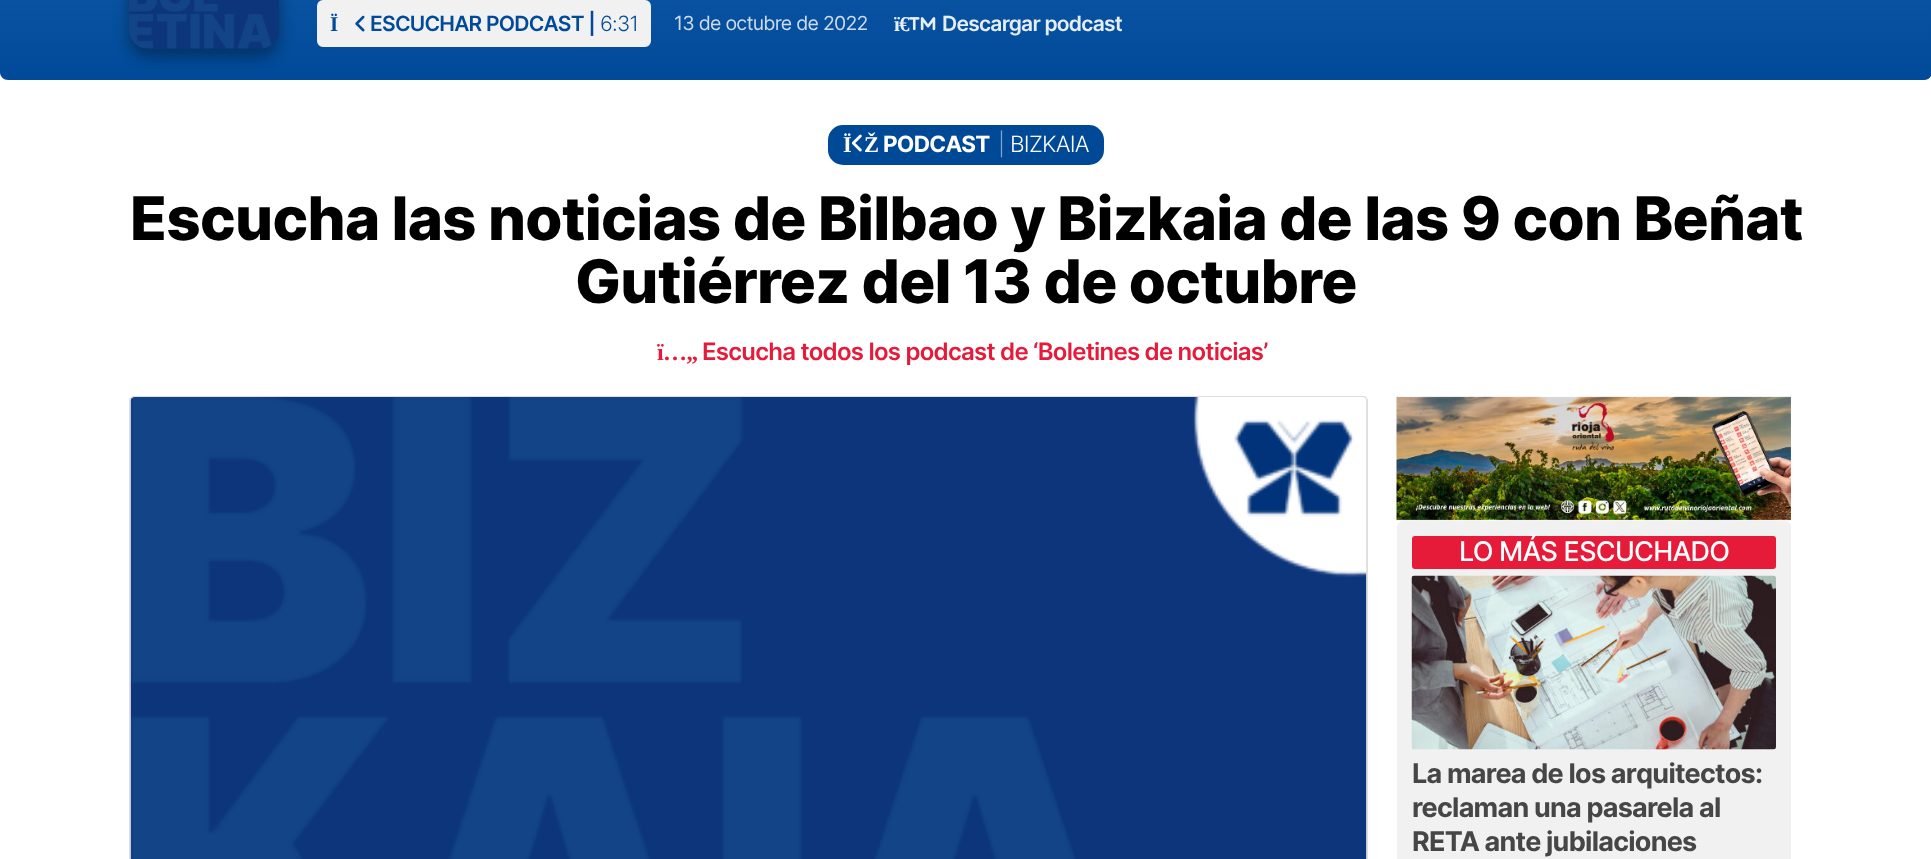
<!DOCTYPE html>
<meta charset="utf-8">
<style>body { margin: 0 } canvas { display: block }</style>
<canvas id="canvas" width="1931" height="859"></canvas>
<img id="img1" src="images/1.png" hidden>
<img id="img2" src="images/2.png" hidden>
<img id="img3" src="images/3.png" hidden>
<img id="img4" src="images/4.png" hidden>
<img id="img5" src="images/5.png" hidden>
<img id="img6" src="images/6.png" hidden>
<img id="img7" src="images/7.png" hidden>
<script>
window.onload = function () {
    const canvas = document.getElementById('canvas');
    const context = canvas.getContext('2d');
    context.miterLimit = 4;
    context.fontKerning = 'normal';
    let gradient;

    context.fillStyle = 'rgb(255, 255, 255)';
    context.fillRect(0, 0, 1931, 859);
    gradient = context.createLinearGradient(966, -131, 966, 80);
    gradient.addColorStop(0, 'rgb(39, 106, 176)');
    gradient.addColorStop(0.25, 'rgb(18, 90, 168)');
    gradient.addColorStop(1, 'rgb(0, 74, 153)');
    context.fillStyle = gradient;
    context.beginPath();
    context.moveTo(0, -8);
    context.lineTo(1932, -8);
    context.lineTo(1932, 72);
    context.bezierCurveTo(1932, 76.5, 1928.5, 80, 1924, 80);
    context.lineTo(8, 80);
    context.bezierCurveTo(3.5, 80, 0, 76.5, 0, 72);
    context.closePath();
    context.fill();
    context.fillStyle = 'rgba(0, 0, 0, 0.35)';
    context.filter = 'blur(7.5px)';
    context.beginPath();
    context.roundRect(129, -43, 150, 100, 20);
    context.fill();
    context.filter = 'none';
    context.drawImage(document.getElementById('img1'), 129, 0, 150, 49);
    context.fillStyle = 'rgb(241, 241, 241)';
    context.beginPath();
    context.roundRect(318, 1, 332, 45, 5);
    context.fill();
    context.strokeStyle = 'rgb(241, 241, 241)';
    context.lineWidth = 2;
    context.stroke();
    context.drawImage(document.getElementById('img2'), 355, 15, 10, 17);
    context.drawImage(document.getElementById('img3'), 909, 17, 27, 14);
    context.fillStyle = 'rgb(0, 73, 151)';
    context.beginPath();
    context.roundRect(828, 125, 276, 40, 15);
    context.fill();
    context.drawImage(document.getElementById('img4'), 851, 134, 11, 18);
    context.beginPath();
    context.roundRect(130, 397, 1237, 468, 4);
    context.strokeStyle = 'rgb(222, 222, 222)';
    context.stroke();
    context.drawImage(document.getElementById('img5'), 130, 397, 1237, 462);
    context.drawImage(document.getElementById('img6'), 1396, 396, 395, 125);
    context.fillStyle = 'rgb(241, 241, 241)';
    context.beginPath();
    context.roundRect(1397, 521, 394, 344, 6);
    context.fill();
    context.fillStyle = 'rgb(230, 26, 57)';
    context.beginPath();
    context.roundRect(1412, 536, 364, 33, 3);
    context.fill();
    context.drawImage(document.getElementById('img7'), 1411, 575, 365, 175);
    context.letterSpacing = '-0.75px';
    context.font = 'bold 21px Liberation Serif';
    context.fillStyle = 'rgb(0, 74, 153)';
    context.fillText('Ï', 330, 31);
    context.font = '600 21px Inter';
    context.fillText('ESCUCHAR PODCAST |', 370, 31);
    context.font = '300 21px Inter';
    context.fillText('6:31', 600, 31);
    context.font = '19.5px Inter';
    context.fillStyle = 'rgb(205, 220, 236)';
    context.fillText('13 de octubre de 2022', 674, 30);
    context.font = 'bold 21px Liberation Serif';
    context.fillStyle = 'rgb(230, 238, 245)';
    context.fillText('ï€', 894, 31);
    context.font = '600 21px Inter';
    context.fillText('Descargar podcast', 942, 31);
    context.font = 'bold 22.5px Liberation Serif';
    context.fillStyle = 'rgb(255, 255, 255)';
    context.fillText('Ï', 843, 152);
    context.fillText('Ž', 864, 152);
    context.font = 'bold 22.5px Inter';
    context.fillText('PODCAST', 883, 152);
    context.font = '300 22.5px Inter';
    context.fillStyle = 'rgb(128, 164, 203)';
    context.fillText('|', 998, 152);
    context.fillStyle = 'rgb(255, 255, 255)';
    context.fillText('BIZKAIA', 1010, 152);
    context.font = '800 60px Inter';
    context.fillStyle = 'rgb(0, 0, 0)';
    context.fillText('Escucha las noticias de Bilbao y Bizkaia de las 9 con Beñat', 130, 240);
    context.fillText('Gutiérrez del 13 de octubre', 575, 303);
    context.font = 'bold 24px Liberation Serif';
    context.fillStyle = 'rgb(230, 26, 57)';
    context.fillText('ï…„', 657, 360);
    context.font = '600 24px Inter';
    context.fillText('Escucha todos los podcast de ‘Boletines de noticias’', 702, 360);
    context.font = '500 27px Inter';
    context.fillStyle = 'rgb(255, 255, 255)';
    context.fillText('LO MÁS ESCUCHADO', 1459, 561);
    context.font = 'bold 27px Inter';
    context.fillStyle = 'rgb(70, 70, 70)';
    context.fillText('La marea de los arquitectos:', 1412, 783);
    context.fillText('reclaman una pasarela al', 1412, 817);
    context.fillText('RETA ante jubilaciones', 1412, 851);
};
</script>
